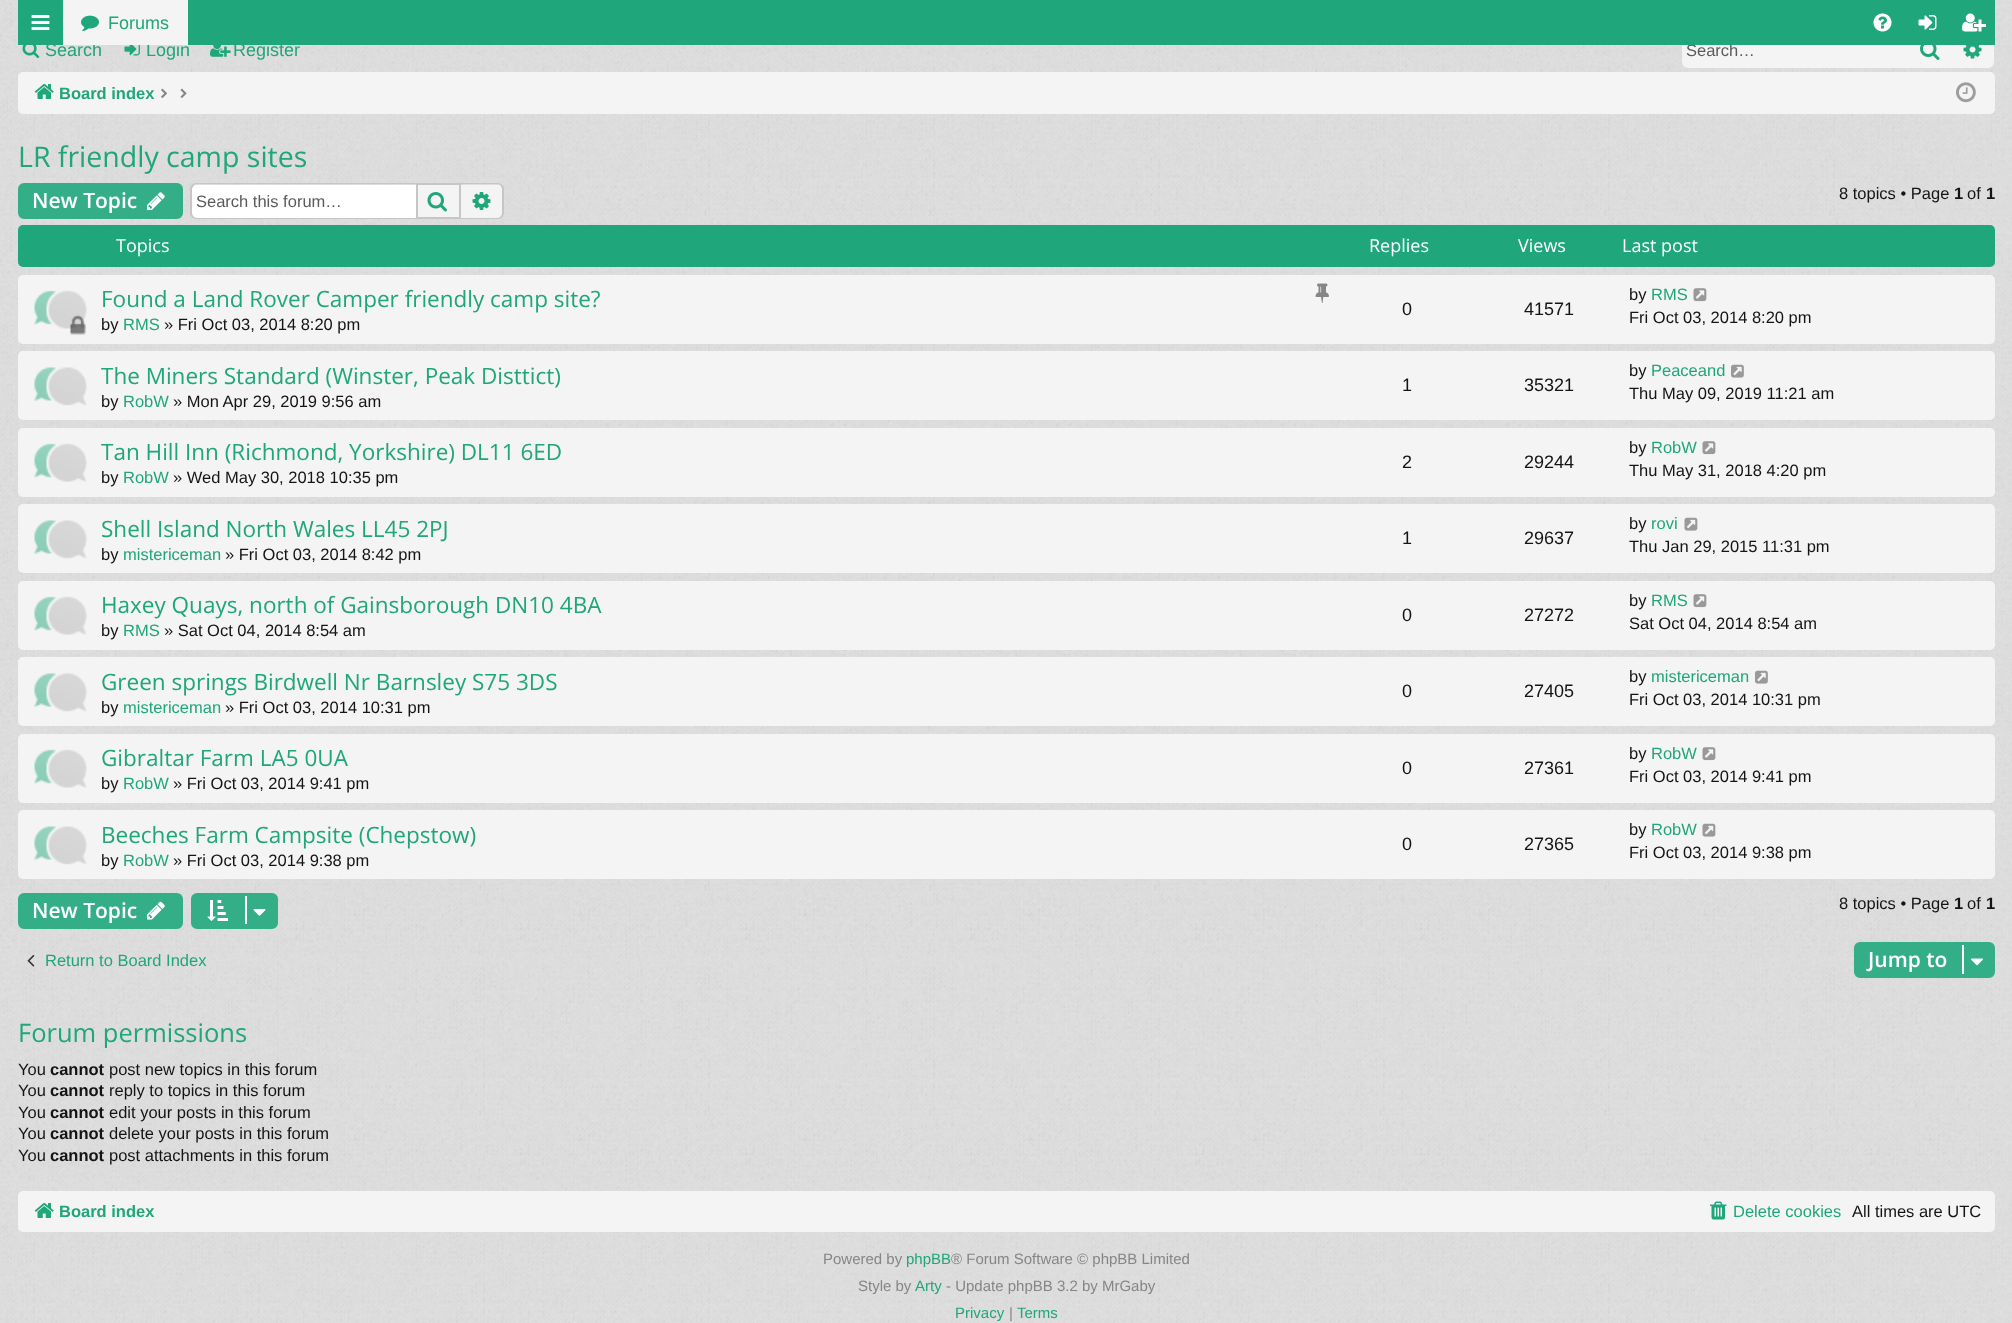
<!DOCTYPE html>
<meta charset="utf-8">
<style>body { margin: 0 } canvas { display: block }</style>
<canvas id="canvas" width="2012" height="1323"></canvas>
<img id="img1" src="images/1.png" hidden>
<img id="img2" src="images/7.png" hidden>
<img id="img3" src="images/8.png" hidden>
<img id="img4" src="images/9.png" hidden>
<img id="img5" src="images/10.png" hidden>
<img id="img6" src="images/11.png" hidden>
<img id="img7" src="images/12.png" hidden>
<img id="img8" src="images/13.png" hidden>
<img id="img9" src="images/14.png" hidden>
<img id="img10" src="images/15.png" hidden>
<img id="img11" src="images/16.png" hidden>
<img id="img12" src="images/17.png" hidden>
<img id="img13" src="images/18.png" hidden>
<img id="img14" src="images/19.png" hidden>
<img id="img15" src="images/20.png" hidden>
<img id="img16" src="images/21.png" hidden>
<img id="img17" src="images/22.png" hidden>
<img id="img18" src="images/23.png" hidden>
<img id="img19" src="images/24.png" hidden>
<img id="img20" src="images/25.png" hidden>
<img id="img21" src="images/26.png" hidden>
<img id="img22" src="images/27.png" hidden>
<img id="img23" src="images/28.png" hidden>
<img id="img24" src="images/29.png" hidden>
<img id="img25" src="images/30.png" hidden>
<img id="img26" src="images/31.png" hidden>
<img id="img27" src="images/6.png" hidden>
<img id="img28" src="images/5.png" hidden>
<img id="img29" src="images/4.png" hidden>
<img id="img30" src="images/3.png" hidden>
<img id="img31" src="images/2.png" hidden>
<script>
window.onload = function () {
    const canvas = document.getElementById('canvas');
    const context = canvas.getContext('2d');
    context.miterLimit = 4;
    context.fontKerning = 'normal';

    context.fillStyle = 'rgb(224, 224, 224)';
    context.fillRect(0, 0, 2012, 1323);
    context.drawImage(document.getElementById('img1'), 0, 0, 2012, 1323);
    context.drawImage(document.getElementById('img2'), 22, 45, 18, 13);
    context.drawImage(document.getElementById('img3'), 124, 45, 16, 11);
    context.drawImage(document.getElementById('img4'), 210, 45, 21, 12);
    context.fillStyle = 'rgb(244, 244, 244)';
    context.beginPath();
    context.roundRect(1682, 32, 225, 36, [6, 0, 0, 6]);
    context.fill();
    context.fillRect(1907, 45, 45, 23);
    context.drawImage(document.getElementById('img5'), 1920, 45, 20, 15);
    context.beginPath();
    context.roundRect(1952, 32, 42, 36, [0, 6, 6, 0]);
    context.fill();
    context.drawImage(document.getElementById('img6'), 1963, 45, 19, 14);
    context.beginPath();
    context.roundRect(18, 72, 1977, 42, 5);
    context.fill();
    context.drawImage(document.getElementById('img7'), 34, 84, 20, 15);
    context.drawImage(document.getElementById('img8'), 161, 88, 6, 10);
    context.drawImage(document.getElementById('img9'), 180, 88, 7, 10);
    context.drawImage(document.getElementById('img10'), 1956, 82, 20, 21);
    context.fillStyle = 'rgb(52, 174, 134)';
    context.beginPath();
    context.roundRect(19, 184, 163, 34, 5);
    context.fill();
    context.strokeStyle = 'rgb(52, 174, 134)';
    context.lineWidth = 2;
    context.stroke();
    context.drawImage(document.getElementById('img11'), 147, 192, 18, 18);
    context.fillStyle = 'rgb(255, 255, 255)';
    context.beginPath();
    context.roundRect(192, 185, 224, 33, [5, 0, 0, 5]);
    context.fill();
    context.fillStyle = 'rgb(198, 198, 198)';
    context.beginPath();
    context.moveTo(196, 183);
    context.lineTo(416, 183);
    context.lineTo(416, 219);
    context.lineTo(196, 219);
    context.bezierCurveTo(193, 219, 190, 216, 190, 213);
    context.lineTo(190, 189);
    context.bezierCurveTo(190, 186, 193, 183, 196, 183);
    context.closePath();
    context.moveTo(196, 184);
    context.lineTo(416, 184);
    context.lineTo(416, 218);
    context.lineTo(196, 218);
    context.bezierCurveTo(194, 218, 192, 215, 192, 213);
    context.lineTo(192, 189);
    context.bezierCurveTo(192, 187, 194, 184, 196, 184);
    context.closePath();
    context.fill('evenodd');
    context.fillStyle = 'rgb(244, 244, 244)';
    context.beginPath();
    context.rect(417, 184, 43, 34);
    context.fill();
    context.strokeStyle = 'rgb(198, 198, 198)';
    context.stroke();
    context.drawImage(document.getElementById('img12'), 427, 192, 20, 20);
    context.beginPath();
    context.roundRect(461, 185, 42, 33, [0, 5, 5, 0]);
    context.fill();
    context.fillStyle = 'rgb(198, 198, 198)';
    context.beginPath();
    context.moveTo(460, 183);
    context.lineTo(498, 183);
    context.bezierCurveTo(501, 183, 504, 186, 504, 189);
    context.lineTo(504, 213);
    context.bezierCurveTo(504, 216, 501, 219, 498, 219);
    context.lineTo(460, 219);
    context.closePath();
    context.moveTo(460, 184);
    context.lineTo(498, 184);
    context.bezierCurveTo(500, 184, 502, 187, 502, 189);
    context.lineTo(502, 213);
    context.bezierCurveTo(502, 215, 500, 218, 498, 218);
    context.lineTo(460, 218);
    context.closePath();
    context.fill('evenodd');
    context.drawImage(document.getElementById('img13'), 472, 192, 19, 18);
    context.fillStyle = 'rgb(31, 166, 122)';
    context.beginPath();
    context.roundRect(18, 225, 1977, 42, 5);
    context.fill();
    context.fillStyle = 'rgb(244, 244, 244)';
    context.beginPath();
    context.roundRect(18, 275, 1977, 69, 5);
    context.fill();
    context.drawImage(document.getElementById('img14'), 34, 290, 53, 45);
    context.drawImage(document.getElementById('img15'), 1315, 283, 14, 20);
    context.drawImage(document.getElementById('img16'), 1693, 288, 14, 14);
    context.beginPath();
    context.roundRect(18, 351, 1977, 69, 5);
    context.fill();
    context.drawImage(document.getElementById('img17'), 34, 367, 53, 39);
    context.drawImage(document.getElementById('img18'), 1731, 364, 13, 14);
    context.beginPath();
    context.roundRect(18, 428, 1977, 69, 5);
    context.fill();
    context.drawImage(document.getElementById('img19'), 34, 443, 53, 39);
    context.drawImage(document.getElementById('img16'), 1702, 441, 14, 14);
    context.beginPath();
    context.roundRect(18, 504, 1977, 69, 5);
    context.fill();
    context.drawImage(document.getElementById('img17'), 34, 520, 53, 39);
    context.drawImage(document.getElementById('img20'), 1684, 517, 14, 14);
    context.beginPath();
    context.roundRect(18, 581, 1977, 69, 5);
    context.fill();
    context.drawImage(document.getElementById('img19'), 34, 596, 53, 39);
    context.drawImage(document.getElementById('img16'), 1693, 594, 14, 14);
    context.beginPath();
    context.roundRect(18, 657, 1977, 69, 5);
    context.fill();
    context.drawImage(document.getElementById('img17'), 34, 673, 53, 39);
    context.drawImage(document.getElementById('img18'), 1755, 670, 13, 14);
    context.beginPath();
    context.roundRect(18, 734, 1977, 69, 5);
    context.fill();
    context.drawImage(document.getElementById('img19'), 34, 749, 53, 39);
    context.drawImage(document.getElementById('img16'), 1702, 747, 14, 14);
    context.beginPath();
    context.roundRect(18, 810, 1977, 69, 5);
    context.fill();
    context.drawImage(document.getElementById('img17'), 34, 826, 53, 39);
    context.drawImage(document.getElementById('img20'), 1702, 823, 14, 14);
    context.fillStyle = 'rgb(52, 174, 134)';
    context.beginPath();
    context.roundRect(19, 894, 163, 34, 5);
    context.fill();
    context.strokeStyle = 'rgb(52, 174, 134)';
    context.stroke();
    context.drawImage(document.getElementById('img21'), 147, 901, 18, 19);
    context.beginPath();
    context.roundRect(192, 894, 85, 34, 5);
    context.fill();
    context.stroke();
    context.drawImage(document.getElementById('img22'), 207, 900, 21, 21);
    context.fillStyle = 'rgb(255, 255, 255)';
    context.fillRect(245, 896, 2, 28);
    context.drawImage(document.getElementById('img23'), 253, 909, 13, 7);
    context.drawImage(document.getElementById('img24'), 27, 955, 8, 12);
    context.fillStyle = 'rgb(52, 174, 134)';
    context.beginPath();
    context.roundRect(1855, 943, 139, 34, 5);
    context.fill();
    context.stroke();
    context.fillStyle = 'rgb(255, 255, 255)';
    context.fillRect(1962, 945, 2, 29);
    context.drawImage(document.getElementById('img25'), 1971, 958, 12, 8);
    context.fillStyle = 'rgb(244, 244, 244)';
    context.beginPath();
    context.roundRect(18, 1191, 1977, 41, 5);
    context.fill();
    context.drawImage(document.getElementById('img7'), 34, 1203, 20, 15);
    context.drawImage(document.getElementById('img26'), 1710, 1201, 17, 19);
    context.font = '18px Liberation Sans';
    context.fillStyle = 'rgb(31, 166, 122)';
    context.fillText('Search', 45, 56);
    context.fillText('Login', 146, 56);
    context.fillText('Register', 233, 56);
    context.font = '16.5px Liberation Sans';
    context.fillStyle = 'rgb(91, 91, 91)';
    context.fillText('Search…', 1686, 56);
    context.fillStyle = 'rgb(31, 166, 122)';
    context.fillRect(18, 0, 1977, 45);
    context.drawImage(document.getElementById('img27'), 1962, 13, 24, 19);
    context.drawImage(document.getElementById('img28'), 1918, 15, 19, 15);
    context.drawImage(document.getElementById('img29'), 1873, 13, 19, 19);
    context.fillStyle = 'rgb(244, 244, 244)';
    context.fillRect(63, 0, 125, 45);
    context.drawImage(document.getElementById('img30'), 81, 15, 18, 16);
    context.font = '18px Liberation Sans';
    context.fillStyle = 'rgb(31, 166, 122)';
    context.fillText('Forums', 108, 29);
    context.drawImage(document.getElementById('img31'), 31, 15, 19, 15);
    context.font = 'bold 16.5px Liberation Sans';
    context.fillText('Board index', 59, 99);
    context.font = '28.5px Open Sans';
    context.fillText('LR friendly camp sites', 18, 167);
    context.font = '600 21px Open Sans';
    context.fillStyle = 'rgb(255, 255, 255)';
    context.fillText('New Topic', 32, 208);
    context.font = '16.5px Liberation Sans';
    context.fillStyle = 'rgb(91, 91, 91)';
    context.fillText('Search this forum…', 196, 207);
    context.fillStyle = 'rgb(20, 20, 20)';
    context.fillText('8 topics • Page', 1839, 199);
    context.font = 'bold 16.5px Liberation Sans';
    context.fillText('1', 1954, 199);
    context.font = '16.5px Liberation Sans';
    context.fillText('of', 1967, 199);
    context.font = 'bold 16.5px Liberation Sans';
    context.fillText('1', 1986, 199);
    context.font = '18px Open Sans';
    context.fillStyle = 'rgb(255, 255, 255)';
    context.fillText('Topics', 116, 252);
    context.fillText('Replies', 1369, 252);
    context.fillText('Views', 1518, 252);
    context.fillText('Last post', 1622, 252);
    context.font = '22.5px Open Sans';
    context.fillStyle = 'rgb(31, 166, 122)';
    context.fillText('Found a Land Rover Camper friendly camp site?', 101, 307);
    context.font = '16.5px Liberation Sans';
    context.fillStyle = 'rgb(20, 20, 20)';
    context.fillText('by', 101, 330);
    context.fillStyle = 'rgb(31, 166, 122)';
    context.fillText('RMS', 123, 330);
    context.fillStyle = 'rgb(20, 20, 20)';
    context.fillText('» Fri Oct 03, 2014 8:20 pm', 164, 330);
    context.font = '18px Liberation Sans';
    context.fillText('0', 1402, 315);
    context.fillText('41571', 1524, 315);
    context.font = '16.5px Liberation Sans';
    context.fillText('by', 1629, 300);
    context.fillStyle = 'rgb(31, 166, 122)';
    context.fillText('RMS', 1651, 300);
    context.fillStyle = 'rgb(20, 20, 20)';
    context.fillText('Fri Oct 03, 2014 8:20 pm', 1629, 323);
    context.font = '22.5px Open Sans';
    context.fillStyle = 'rgb(31, 166, 122)';
    context.fillText('The Miners Standard (Winster, Peak Disttict)', 101, 384);
    context.font = '16.5px Liberation Sans';
    context.fillStyle = 'rgb(20, 20, 20)';
    context.fillText('by', 101, 407);
    context.fillStyle = 'rgb(31, 166, 122)';
    context.fillText('RobW', 123, 407);
    context.fillStyle = 'rgb(20, 20, 20)';
    context.fillText('» Mon Apr 29, 2019 9:56 am', 173, 407);
    context.font = '18px Liberation Sans';
    context.fillText('1', 1402, 391);
    context.fillText('35321', 1524, 391);
    context.font = '16.5px Liberation Sans';
    context.fillText('by', 1629, 376);
    context.fillStyle = 'rgb(31, 166, 122)';
    context.fillText('Peaceand', 1651, 376);
    context.fillStyle = 'rgb(20, 20, 20)';
    context.fillText('Thu May 09, 2019 11:21 am', 1629, 399);
    context.font = '22.5px Open Sans';
    context.fillStyle = 'rgb(31, 166, 122)';
    context.fillText('Tan Hill Inn (Richmond, Yorkshire) DL11 6ED', 101, 460);
    context.font = '16.5px Liberation Sans';
    context.fillStyle = 'rgb(20, 20, 20)';
    context.fillText('by', 101, 483);
    context.fillStyle = 'rgb(31, 166, 122)';
    context.fillText('RobW', 123, 483);
    context.fillStyle = 'rgb(20, 20, 20)';
    context.fillText('» Wed May 30, 2018 10:35 pm', 173, 483);
    context.font = '18px Liberation Sans';
    context.fillText('2', 1402, 468);
    context.fillText('29244', 1524, 468);
    context.font = '16.5px Liberation Sans';
    context.fillText('by', 1629, 453);
    context.fillStyle = 'rgb(31, 166, 122)';
    context.fillText('RobW', 1651, 453);
    context.fillStyle = 'rgb(20, 20, 20)';
    context.fillText('Thu May 31, 2018 4:20 pm', 1629, 476);
    context.font = '22.5px Open Sans';
    context.fillStyle = 'rgb(31, 166, 122)';
    context.fillText('Shell Island North Wales LL45 2PJ', 101, 537);
    context.font = '16.5px Liberation Sans';
    context.fillStyle = 'rgb(20, 20, 20)';
    context.fillText('by', 101, 560);
    context.fillStyle = 'rgb(31, 166, 122)';
    context.fillText('mistericeman', 123, 560);
    context.fillStyle = 'rgb(20, 20, 20)';
    context.fillText('» Fri Oct 03, 2014 8:42 pm', 225, 560);
    context.font = '18px Liberation Sans';
    context.fillText('1', 1402, 544);
    context.fillText('29637', 1524, 544);
    context.font = '16.5px Liberation Sans';
    context.fillText('by', 1629, 529);
    context.fillStyle = 'rgb(31, 166, 122)';
    context.fillText('rovi', 1651, 529);
    context.fillStyle = 'rgb(20, 20, 20)';
    context.fillText('Thu Jan 29, 2015 11:31 pm', 1629, 552);
    context.font = '22.5px Open Sans';
    context.fillStyle = 'rgb(31, 166, 122)';
    context.fillText('Haxey Quays, north of Gainsborough DN10 4BA', 101, 613);
    context.font = '16.5px Liberation Sans';
    context.fillStyle = 'rgb(20, 20, 20)';
    context.fillText('by', 101, 636);
    context.fillStyle = 'rgb(31, 166, 122)';
    context.fillText('RMS', 123, 636);
    context.fillStyle = 'rgb(20, 20, 20)';
    context.fillText('» Sat Oct 04, 2014 8:54 am', 164, 636);
    context.font = '18px Liberation Sans';
    context.fillText('0', 1402, 621);
    context.fillText('27272', 1524, 621);
    context.font = '16.5px Liberation Sans';
    context.fillText('by', 1629, 606);
    context.fillStyle = 'rgb(31, 166, 122)';
    context.fillText('RMS', 1651, 606);
    context.fillStyle = 'rgb(20, 20, 20)';
    context.fillText('Sat Oct 04, 2014 8:54 am', 1629, 629);
    context.font = '22.5px Open Sans';
    context.fillStyle = 'rgb(31, 166, 122)';
    context.fillText('Green springs Birdwell Nr Barnsley S75 3DS', 101, 690);
    context.font = '16.5px Liberation Sans';
    context.fillStyle = 'rgb(20, 20, 20)';
    context.fillText('by', 101, 713);
    context.fillStyle = 'rgb(31, 166, 122)';
    context.fillText('mistericeman', 123, 713);
    context.fillStyle = 'rgb(20, 20, 20)';
    context.fillText('» Fri Oct 03, 2014 10:31 pm', 225, 713);
    context.font = '18px Liberation Sans';
    context.fillText('0', 1402, 697);
    context.fillText('27405', 1524, 697);
    context.font = '16.5px Liberation Sans';
    context.fillText('by', 1629, 682);
    context.fillStyle = 'rgb(31, 166, 122)';
    context.fillText('mistericeman', 1651, 682);
    context.fillStyle = 'rgb(20, 20, 20)';
    context.fillText('Fri Oct 03, 2014 10:31 pm', 1629, 705);
    context.font = '22.5px Open Sans';
    context.fillStyle = 'rgb(31, 166, 122)';
    context.fillText('Gibraltar Farm LA5 0UA', 101, 766);
    context.font = '16.5px Liberation Sans';
    context.fillStyle = 'rgb(20, 20, 20)';
    context.fillText('by', 101, 789);
    context.fillStyle = 'rgb(31, 166, 122)';
    context.fillText('RobW', 123, 789);
    context.fillStyle = 'rgb(20, 20, 20)';
    context.fillText('» Fri Oct 03, 2014 9:41 pm', 173, 789);
    context.font = '18px Liberation Sans';
    context.fillText('0', 1402, 774);
    context.fillText('27361', 1524, 774);
    context.font = '16.5px Liberation Sans';
    context.fillText('by', 1629, 759);
    context.fillStyle = 'rgb(31, 166, 122)';
    context.fillText('RobW', 1651, 759);
    context.fillStyle = 'rgb(20, 20, 20)';
    context.fillText('Fri Oct 03, 2014 9:41 pm', 1629, 782);
    context.font = '22.5px Open Sans';
    context.fillStyle = 'rgb(31, 166, 122)';
    context.fillText('Beeches Farm Campsite (Chepstow)', 101, 843);
    context.font = '16.5px Liberation Sans';
    context.fillStyle = 'rgb(20, 20, 20)';
    context.fillText('by', 101, 866);
    context.fillStyle = 'rgb(31, 166, 122)';
    context.fillText('RobW', 123, 866);
    context.fillStyle = 'rgb(20, 20, 20)';
    context.fillText('» Fri Oct 03, 2014 9:38 pm', 173, 866);
    context.font = '18px Liberation Sans';
    context.fillText('0', 1402, 850);
    context.fillText('27365', 1524, 850);
    context.font = '16.5px Liberation Sans';
    context.fillText('by', 1629, 835);
    context.fillStyle = 'rgb(31, 166, 122)';
    context.fillText('RobW', 1651, 835);
    context.fillStyle = 'rgb(20, 20, 20)';
    context.fillText('Fri Oct 03, 2014 9:38 pm', 1629, 858);
    context.font = '600 21px Open Sans';
    context.fillStyle = 'rgb(255, 255, 255)';
    context.fillText('New Topic', 32, 918);
    context.font = '16.5px Liberation Sans';
    context.fillStyle = 'rgb(20, 20, 20)';
    context.fillText('8 topics • Page', 1839, 909);
    context.font = 'bold 16.5px Liberation Sans';
    context.fillText('1', 1954, 909);
    context.font = '16.5px Liberation Sans';
    context.fillText('of', 1967, 909);
    context.font = 'bold 16.5px Liberation Sans';
    context.fillText('1', 1986, 909);
    context.font = '16.5px Liberation Sans';
    context.fillStyle = 'rgb(31, 166, 122)';
    context.fillText('Return to Board Index', 45, 966);
    context.font = '600 21px Open Sans';
    context.fillStyle = 'rgb(255, 255, 255)';
    context.fillText('Jump to', 1868, 967);
    context.font = '25.5px Open Sans';
    context.fillStyle = 'rgb(31, 166, 122)';
    context.fillText('Forum permissions', 18, 1042);
    context.font = '16.5px Liberation Sans';
    context.fillStyle = 'rgb(20, 20, 20)';
    context.fillText('You', 18, 1075);
    context.font = 'bold 16.5px Liberation Sans';
    context.fillText('cannot', 50, 1075);
    context.font = '16.5px Liberation Sans';
    context.fillText('post new topics in this forum', 109, 1075);
    context.fillText('You', 18, 1096);
    context.font = 'bold 16.5px Liberation Sans';
    context.fillText('cannot', 50, 1096);
    context.font = '16.5px Liberation Sans';
    context.fillText('reply to topics in this forum', 109, 1096);
    context.fillText('You', 18, 1118);
    context.font = 'bold 16.5px Liberation Sans';
    context.fillText('cannot', 50, 1118);
    context.font = '16.5px Liberation Sans';
    context.fillText('edit your posts in this forum', 109, 1118);
    context.fillText('You', 18, 1139);
    context.font = 'bold 16.5px Liberation Sans';
    context.fillText('cannot', 50, 1139);
    context.font = '16.5px Liberation Sans';
    context.fillText('delete your posts in this forum', 109, 1139);
    context.fillText('You', 18, 1161);
    context.font = 'bold 16.5px Liberation Sans';
    context.fillText('cannot', 50, 1161);
    context.font = '16.5px Liberation Sans';
    context.fillText('post attachments in this forum', 109, 1161);
    context.font = 'bold 16.5px Liberation Sans';
    context.fillStyle = 'rgb(31, 166, 122)';
    context.fillText('Board index', 59, 1217);
    context.font = '16.5px Liberation Sans';
    context.fillText('Delete cookies', 1733, 1217);
    context.fillStyle = 'rgb(20, 20, 20)';
    context.fillText('All times are UTC', 1852, 1217);
    context.font = '15px Liberation Sans';
    context.fillStyle = 'rgb(134, 134, 134)';
    context.fillText('Powered by', 823, 1264);
    context.fillStyle = 'rgb(31, 166, 122)';
    context.fillText('phpBB', 906, 1264);
    context.fillStyle = 'rgb(134, 134, 134)';
    context.fillText('® Forum Software © phpBB Limited', 951, 1264);
    context.fillText('Style by', 858, 1291);
    context.fillStyle = 'rgb(31, 166, 122)';
    context.fillText('Arty', 915, 1291);
    context.fillStyle = 'rgb(134, 134, 134)';
    context.fillText('- Update phpBB 3.2 by MrGaby', 946, 1291);
    context.fillStyle = 'rgb(31, 166, 122)';
    context.fillText('Privacy', 955, 1318);
    context.fillStyle = 'rgb(134, 134, 134)';
    context.fillText('|', 1009, 1318);
    context.fillStyle = 'rgb(31, 166, 122)';
    context.fillText('Terms', 1017, 1318);
};
</script>
